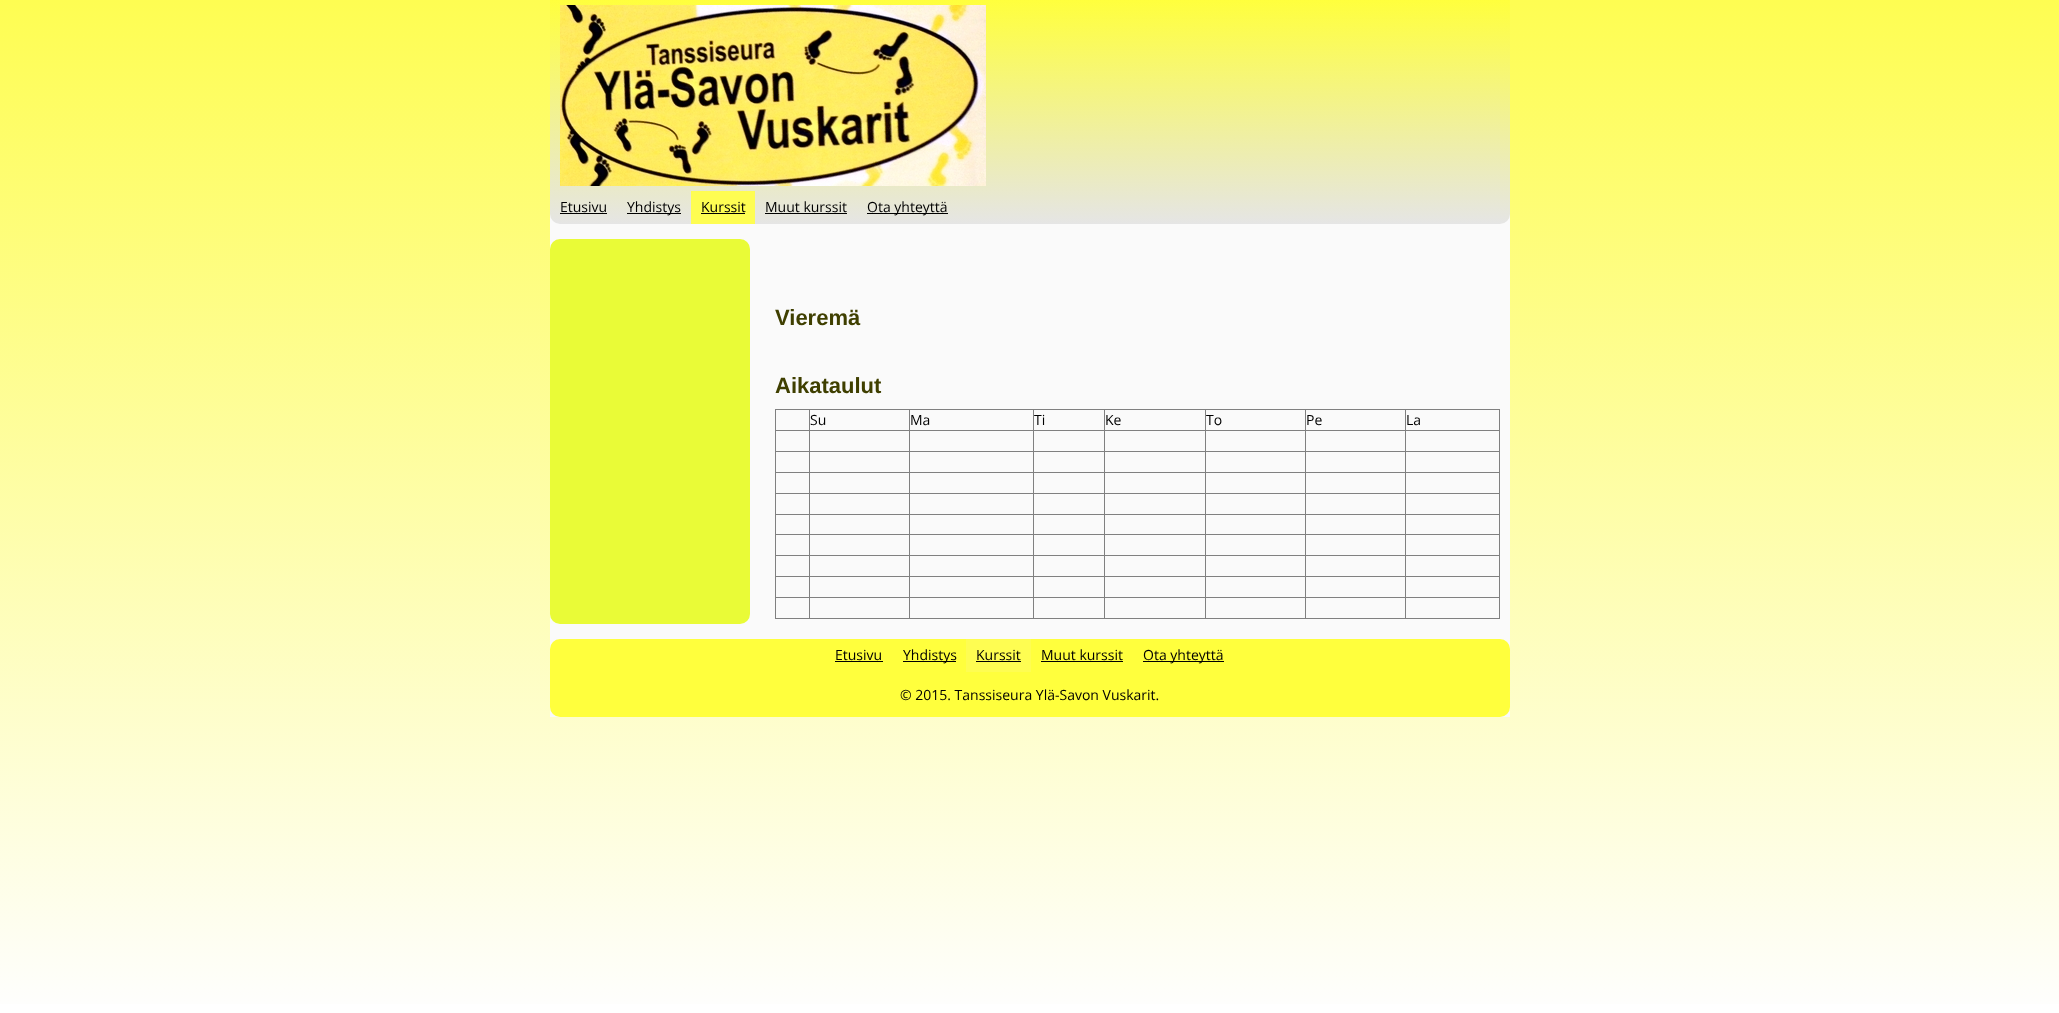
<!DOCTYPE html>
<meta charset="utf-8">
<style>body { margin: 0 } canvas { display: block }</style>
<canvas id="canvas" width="2059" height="1013"></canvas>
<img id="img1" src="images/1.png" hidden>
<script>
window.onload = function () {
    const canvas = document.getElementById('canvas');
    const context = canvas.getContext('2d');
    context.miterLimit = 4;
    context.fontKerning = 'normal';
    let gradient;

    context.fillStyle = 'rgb(255, 255, 255)';
    context.fillRect(0, 0, 2059, 1013);
    gradient = context.createLinearGradient(1030, 1013, 1030, 0);
    gradient.addColorStop(0, 'rgb(254, 254, 254)');
    gradient.addColorStop(1, 'rgb(254, 253, 82)');
    context.fillStyle = gradient;
    context.fillRect(0, 0, 2059, 1004);
    context.fillStyle = 'rgb(250, 250, 250)';
    context.fillRect(550, 214, 960, 503);
    gradient = context.createLinearGradient(1030, 224, 1030, 0);
    gradient.addColorStop(0, 'rgb(229, 229, 229)');
    gradient.addColorStop(1, 'rgb(255, 255, 61)');
    context.fillStyle = gradient;
    context.beginPath();
    context.roundRect(550, 0, 960, 224, [0, 0, 10, 10]);
    context.fill();
    context.drawImage(document.getElementById('img1'), 560, 5, 426, 181);
    context.fillStyle = 'rgb(0, 0, 0)';
    context.fillRect(560, 213, 47, 1);
    context.fillRect(627, 213, 54, 1);
    context.fillStyle = 'rgb(254, 253, 82)';
    context.fillRect(691, 191, 64, 33);
    context.fillStyle = 'rgb(0, 0, 0)';
    context.fillRect(701, 213, 44, 1);
    context.fillRect(765, 213, 82, 1);
    context.fillRect(867, 213, 81, 1);
    context.fillStyle = 'rgb(233, 251, 55)';
    context.beginPath();
    context.roundRect(550, 239, 200, 385, 10);
    context.fill();
    context.fillStyle = 'rgb(128, 128, 128)';
    context.fillRect(775, 409, 725, 1);
    context.fillRect(1499, 409, 1, 210);
    context.fillRect(775, 618, 725, 1);
    context.fillRect(775, 409, 1, 210);
    context.fillRect(1405, 430, 95, 1);
    context.fillRect(1405, 451, 95, 1);
    context.fillRect(1405, 472, 95, 1);
    context.fillRect(1405, 493, 95, 1);
    context.fillRect(1405, 514, 95, 1);
    context.fillRect(1405, 534, 95, 1);
    context.fillRect(1405, 555, 95, 1);
    context.fillRect(1405, 576, 95, 1);
    context.fillRect(1405, 597, 95, 1);
    context.fillRect(1405, 597, 1, 22);
    context.fillRect(1305, 597, 101, 1);
    context.fillRect(1405, 576, 1, 22);
    context.fillRect(1305, 576, 101, 1);
    context.fillRect(1405, 555, 1, 22);
    context.fillRect(1305, 555, 101, 1);
    context.fillRect(1405, 534, 1, 22);
    context.fillRect(1305, 534, 101, 1);
    context.fillRect(1405, 514, 1, 21);
    context.fillRect(1305, 514, 101, 1);
    context.fillRect(1405, 493, 1, 22);
    context.fillRect(1305, 493, 101, 1);
    context.fillRect(1405, 472, 1, 22);
    context.fillRect(1305, 472, 101, 1);
    context.fillRect(1405, 451, 1, 22);
    context.fillRect(1305, 451, 101, 1);
    context.fillRect(1405, 430, 1, 22);
    context.fillRect(1305, 430, 101, 1);
    context.fillRect(1305, 597, 1, 22);
    context.fillRect(1205, 597, 101, 1);
    context.fillRect(1305, 576, 1, 22);
    context.fillRect(1205, 576, 101, 1);
    context.fillRect(1305, 555, 1, 22);
    context.fillRect(1205, 555, 101, 1);
    context.fillRect(1305, 534, 1, 22);
    context.fillRect(1205, 534, 101, 1);
    context.fillRect(1305, 514, 1, 21);
    context.fillRect(1205, 514, 101, 1);
    context.fillRect(1305, 493, 1, 22);
    context.fillRect(1205, 493, 101, 1);
    context.fillRect(1305, 472, 1, 22);
    context.fillRect(1205, 472, 101, 1);
    context.fillRect(1305, 451, 1, 22);
    context.fillRect(1205, 451, 101, 1);
    context.fillRect(1305, 430, 1, 22);
    context.fillRect(1205, 430, 101, 1);
    context.fillRect(1205, 597, 1, 22);
    context.fillRect(1104, 597, 102, 1);
    context.fillRect(1205, 576, 1, 22);
    context.fillRect(1104, 576, 102, 1);
    context.fillRect(1205, 555, 1, 22);
    context.fillRect(1104, 555, 102, 1);
    context.fillRect(1205, 534, 1, 22);
    context.fillRect(1104, 534, 102, 1);
    context.fillRect(1205, 514, 1, 21);
    context.fillRect(1104, 514, 102, 1);
    context.fillRect(1205, 493, 1, 22);
    context.fillRect(1104, 493, 102, 1);
    context.fillRect(1205, 472, 1, 22);
    context.fillRect(1104, 472, 102, 1);
    context.fillRect(1205, 451, 1, 22);
    context.fillRect(1104, 451, 102, 1);
    context.fillRect(1205, 430, 1, 22);
    context.fillRect(1104, 430, 102, 1);
    context.fillRect(1104, 597, 1, 22);
    context.fillRect(1033, 597, 72, 1);
    context.fillRect(1104, 576, 1, 22);
    context.fillRect(1033, 576, 72, 1);
    context.fillRect(1104, 555, 1, 22);
    context.fillRect(1033, 555, 72, 1);
    context.fillRect(1104, 534, 1, 22);
    context.fillRect(1033, 534, 72, 1);
    context.fillRect(1104, 514, 1, 21);
    context.fillRect(1033, 514, 72, 1);
    context.fillRect(1104, 493, 1, 22);
    context.fillRect(1033, 493, 72, 1);
    context.fillRect(1104, 472, 1, 22);
    context.fillRect(1033, 472, 72, 1);
    context.fillRect(1104, 451, 1, 22);
    context.fillRect(1033, 451, 72, 1);
    context.fillRect(1104, 430, 1, 22);
    context.fillRect(1033, 430, 72, 1);
    context.fillRect(1033, 597, 1, 22);
    context.fillRect(909, 597, 125, 1);
    context.fillRect(1033, 576, 1, 22);
    context.fillRect(909, 576, 125, 1);
    context.fillRect(1033, 555, 1, 22);
    context.fillRect(909, 555, 125, 1);
    context.fillRect(1033, 534, 1, 22);
    context.fillRect(909, 534, 125, 1);
    context.fillRect(1033, 514, 1, 21);
    context.fillRect(909, 514, 125, 1);
    context.fillRect(1033, 493, 1, 22);
    context.fillRect(909, 493, 125, 1);
    context.fillRect(1033, 472, 1, 22);
    context.fillRect(909, 472, 125, 1);
    context.fillRect(1033, 451, 1, 22);
    context.fillRect(909, 451, 125, 1);
    context.fillRect(1033, 430, 1, 22);
    context.fillRect(909, 430, 125, 1);
    context.fillRect(909, 597, 1, 22);
    context.fillRect(809, 597, 101, 1);
    context.fillRect(909, 576, 1, 22);
    context.fillRect(809, 576, 101, 1);
    context.fillRect(909, 555, 1, 22);
    context.fillRect(809, 555, 101, 1);
    context.fillRect(909, 534, 1, 22);
    context.fillRect(809, 534, 101, 1);
    context.fillRect(909, 514, 1, 21);
    context.fillRect(809, 514, 101, 1);
    context.fillRect(909, 493, 1, 22);
    context.fillRect(809, 493, 101, 1);
    context.fillRect(909, 472, 1, 22);
    context.fillRect(809, 472, 101, 1);
    context.fillRect(909, 451, 1, 22);
    context.fillRect(809, 451, 101, 1);
    context.fillRect(909, 430, 1, 22);
    context.fillRect(809, 430, 101, 1);
    context.fillRect(809, 597, 1, 22);
    context.fillRect(775, 597, 35, 1);
    context.fillRect(809, 576, 1, 22);
    context.fillRect(775, 576, 35, 1);
    context.fillRect(809, 555, 1, 22);
    context.fillRect(775, 555, 35, 1);
    context.fillRect(809, 534, 1, 22);
    context.fillRect(775, 534, 35, 1);
    context.fillRect(809, 514, 1, 21);
    context.fillRect(775, 514, 35, 1);
    context.fillRect(809, 493, 1, 22);
    context.fillRect(775, 493, 35, 1);
    context.fillRect(809, 472, 1, 22);
    context.fillRect(775, 472, 35, 1);
    context.fillRect(809, 451, 1, 22);
    context.fillRect(775, 451, 35, 1);
    context.fillRect(809, 430, 1, 22);
    context.fillRect(775, 430, 35, 1);
    context.fillRect(809, 409, 1, 22);
    context.fillRect(909, 409, 1, 22);
    context.fillRect(1033, 409, 1, 22);
    context.fillRect(1104, 409, 1, 22);
    context.fillRect(1205, 409, 1, 22);
    context.fillRect(1305, 409, 1, 22);
    context.fillRect(1405, 409, 1, 22);
    context.fillStyle = 'rgb(255, 255, 61)';
    context.beginPath();
    context.roundRect(550, 639, 960, 78, 10);
    context.fill();
    context.fillStyle = 'rgb(0, 0, 0)';
    context.fillRect(835, 661, 48, 1);
    context.fillRect(903, 661, 53, 1);
    context.fillStyle = 'rgb(254, 253, 82)';
    context.fillRect(966, 639, 65, 33);
    context.fillStyle = 'rgb(0, 0, 0)';
    context.fillRect(976, 661, 45, 1);
    context.fillRect(1041, 661, 82, 1);
    context.fillRect(1143, 661, 81, 1);
    context.font = '14px Open Sans';
    context.fillText('Etusivu', 560, 212);
    context.fillText('Yhdistys', 627, 212);
    context.fillText('Kurssit', 701, 212);
    context.fillText('Muut kurssit', 765, 212);
    context.fillText('Ota yhteyttä', 867, 212);
    context.font = 'bold 22px Liberation Sans';
    context.fillStyle = 'rgb(63, 63, 0)';
    context.fillText('Vieremä', 775, 325);
    context.fillText('Aikataulut', 775, 393);
    context.font = '14px Open Sans';
    context.fillStyle = 'rgb(0, 0, 0)';
    context.fillText('Su', 810, 425);
    context.fillText('Ma', 910, 425);
    context.fillText('Ti', 1034, 425);
    context.fillText('Ke', 1105, 425);
    context.fillText('To', 1206, 425);
    context.fillText('Pe', 1306, 425);
    context.fillText('La', 1406, 425);
    context.fillText('Etusivu', 835, 660);
    context.fillText('Yhdistys', 903, 660);
    context.fillText('Kurssit', 976, 660);
    context.fillText('Muut kurssit', 1041, 660);
    context.fillText('Ota yhteyttä', 1143, 660);
    context.fillText('© 2015. Tanssiseura Ylä-Savon Vuskarit.', 900, 700);
};
</script>
